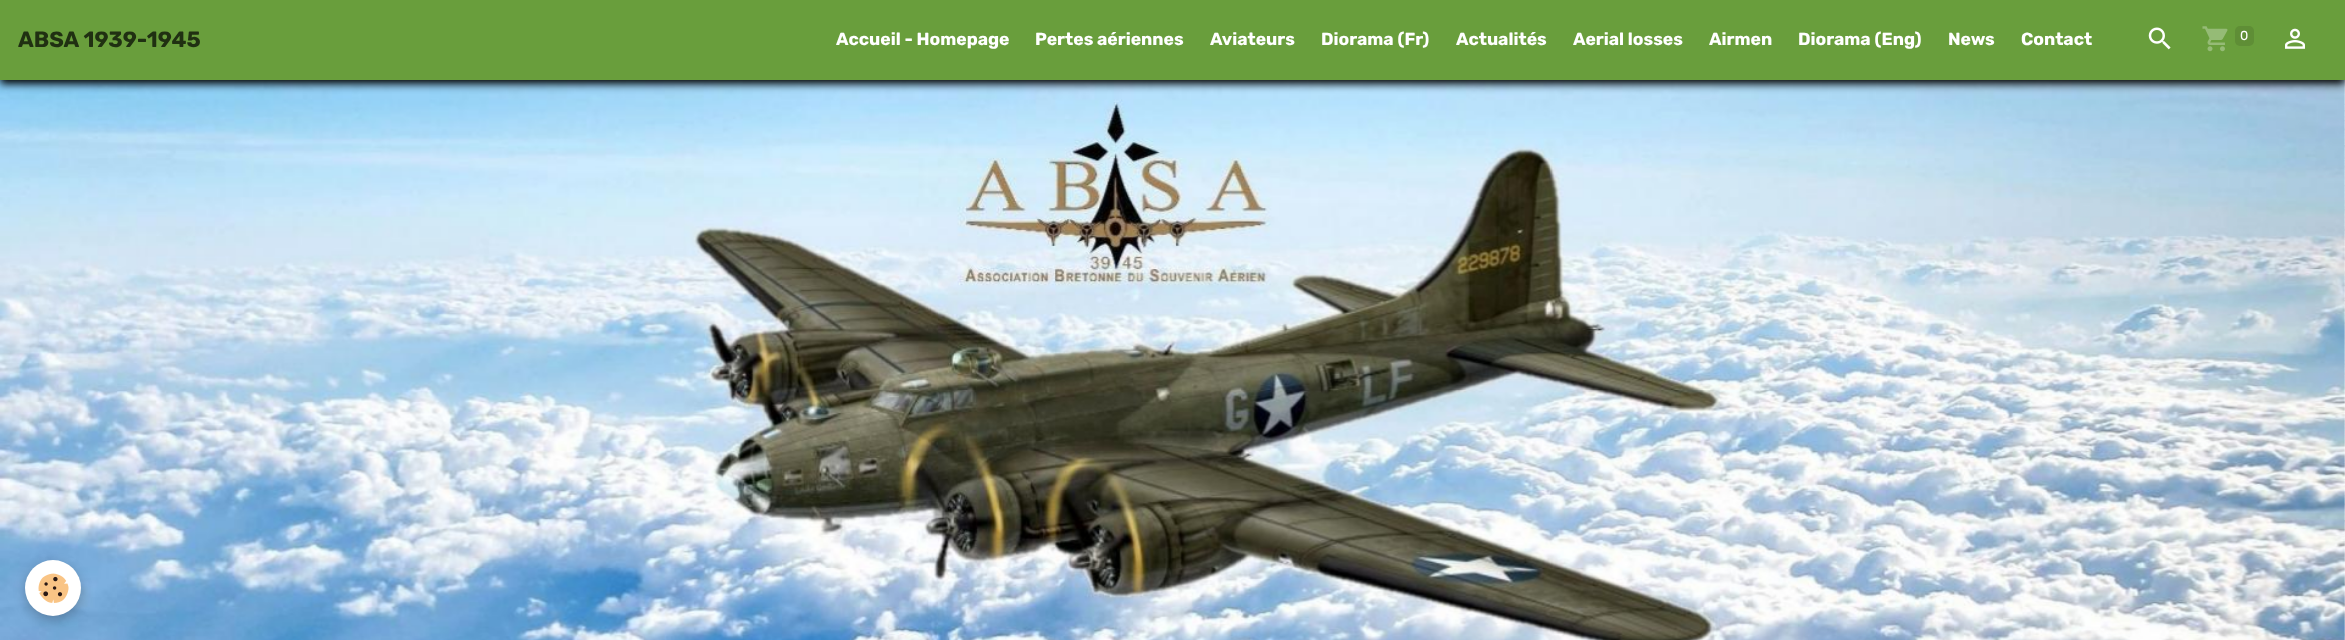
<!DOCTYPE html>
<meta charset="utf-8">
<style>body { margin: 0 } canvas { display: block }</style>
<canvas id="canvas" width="2345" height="640"></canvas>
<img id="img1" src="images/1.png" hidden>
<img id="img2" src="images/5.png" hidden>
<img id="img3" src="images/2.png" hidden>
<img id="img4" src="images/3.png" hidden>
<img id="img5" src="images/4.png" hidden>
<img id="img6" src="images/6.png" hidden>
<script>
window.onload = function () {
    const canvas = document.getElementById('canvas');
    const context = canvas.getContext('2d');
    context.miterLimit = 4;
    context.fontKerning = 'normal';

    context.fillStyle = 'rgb(255, 255, 255)';
    context.fillRect(0, 0, 2345, 640);
    context.drawImage(document.getElementById('img1'), 0, 80, 2345, 560);
    context.drawImage(document.getElementById('img2'), 0, 80, 2345, 560);
    context.fillStyle = 'rgb(0, 0, 0)';
    context.filter = 'blur(4.5px)';
    context.beginPath();
    context.rect(0, 4, 2345, 80);
    context.fill();
    context.filter = 'none';
    context.fillStyle = 'rgb(105, 158, 60)';
    context.fillRect(0, 0, 2345, 80);
    context.drawImage(document.getElementById('img3'), 2148, 27, 23, 23);
    context.drawImage(document.getElementById('img4'), 2202, 26, 26, 26);
    context.fillStyle = 'rgb(95, 142, 54)';
    context.beginPath();
    context.roundRect(2235, 26, 19, 20, 5);
    context.fill();
    context.drawImage(document.getElementById('img5'), 2285, 28, 20, 21);
    context.fillStyle = 'rgba(0, 0, 0, 0.24)';
    context.filter = 'blur(6px)';
    context.beginPath();
    context.roundRect(25, 564, 56, 56, 28);
    context.fill();
    context.filter = 'none';
    context.fillStyle = 'rgb(255, 255, 255)';
    context.beginPath();
    context.arc(53, 588, 28, 0, 2 * Math.PI);
    context.fill();
    context.drawImage(document.getElementById('img6'), 38, 573, 31, 30);
    context.font = '300 22px Rubik';
    context.fillStyle = 'rgb(32, 48, 18)';
    context.fillText('ABSA 1939-1945', 18, 47);
    context.font = '300 17.5px Rubik';
    context.fillStyle = 'rgb(255, 255, 255)';
    context.fillText('Accueil - Homepage', 836, 45);
    context.fillText('Pertes aériennes', 1035, 45);
    context.fillText('Aviateurs', 1210, 45);
    context.fillText('Diorama (Fr)', 1321, 45);
    context.fillText('Actualités', 1456, 45);
    context.fillText('Aerial losses', 1573, 45);
    context.fillText('Airmen', 1709, 45);
    context.fillText('Diorama (Eng)', 1798, 45);
    context.fillText('News', 1948, 45);
    context.fillText('Contact', 2021, 45);
    context.font = '300 13px "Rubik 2"';
    context.fillText('0', 2240, 40);
};
</script>
